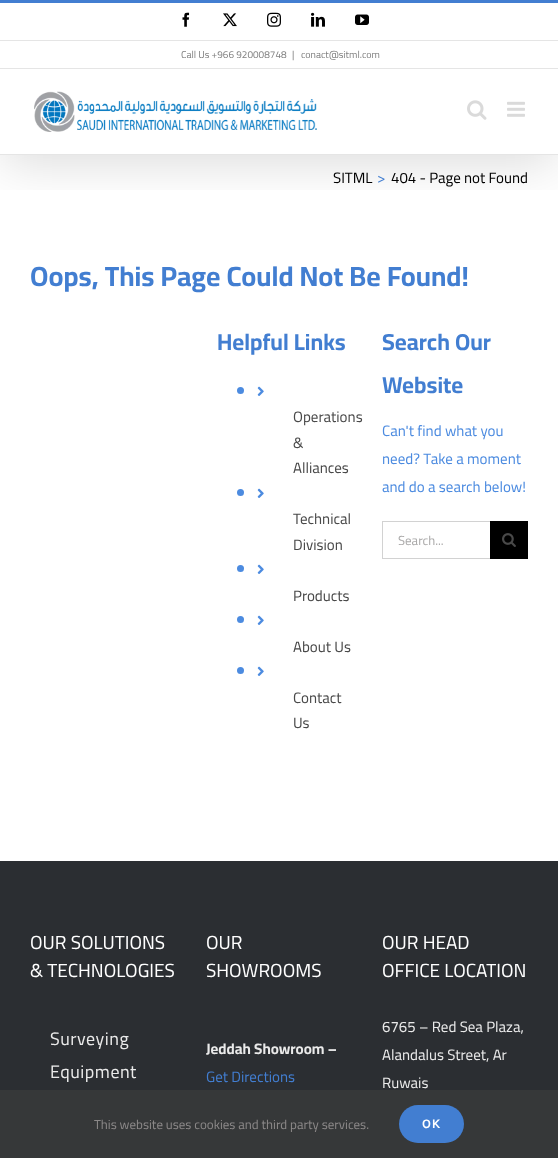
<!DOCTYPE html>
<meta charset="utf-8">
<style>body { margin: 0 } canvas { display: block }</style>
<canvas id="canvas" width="558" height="1158"></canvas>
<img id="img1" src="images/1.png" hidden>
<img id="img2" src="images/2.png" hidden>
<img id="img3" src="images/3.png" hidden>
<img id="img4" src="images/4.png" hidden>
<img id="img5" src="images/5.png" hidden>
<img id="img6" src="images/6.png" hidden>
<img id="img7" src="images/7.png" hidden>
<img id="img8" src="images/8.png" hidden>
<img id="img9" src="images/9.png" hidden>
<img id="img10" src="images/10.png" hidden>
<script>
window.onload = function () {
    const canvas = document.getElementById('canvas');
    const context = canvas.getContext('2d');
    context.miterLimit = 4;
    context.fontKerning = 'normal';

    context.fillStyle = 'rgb(255, 255, 255)';
    context.fillRect(0, 0, 558, 1158);
    context.save();
    context.beginPath();
    context.rect(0, 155, 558, 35);
    context.clip();
    context.fillStyle = 'rgba(0, 0, 0, 0.14)';
    context.filter = 'blur(25px)';
    context.beginPath();
    context.rect(2, 12, 554, 151);
    context.fill();
    context.filter = 'none';
    context.restore();
    context.fillStyle = 'rgb(66, 126, 209)';
    context.fillRect(0, 0, 558, 3);
    context.fillStyle = 'rgb(229, 229, 229)';
    context.fillRect(0, 68, 558, 1);
    context.fillRect(0, 40, 558, 1);
    context.drawImage(document.getElementById('img1'), 182, 12, 8, 15);
    context.drawImage(document.getElementById('img2'), 223, 13, 14, 14);
    context.drawImage(document.getElementById('img3'), 267, 12, 14, 15);
    context.drawImage(document.getElementById('img4'), 311, 12, 14, 15);
    context.drawImage(document.getElementById('img5'), 355, 14, 14, 11);
    context.fillRect(0, 154, 558, 1);
    context.drawImage(document.getElementById('img6'), 34, 91, 283, 41);
    context.drawImage(document.getElementById('img7'), 467, 100, 20, 20);
    context.drawImage(document.getElementById('img8'), 507, 101, 18, 16);
    context.fillStyle = 'rgb(76, 139, 224)';
    context.beginPath();
    context.arc(240.5, 390.5, 3.5, 0, 2 * Math.PI);
    context.fill();
    context.drawImage(document.getElementById('img9'), 257, 386, 7, 10);
    context.beginPath();
    context.arc(240.5, 492.5, 3.5, 0, 2 * Math.PI);
    context.fill();
    context.drawImage(document.getElementById('img9'), 257, 488, 7, 10);
    context.beginPath();
    context.arc(240.5, 568.5, 3.5, 0, 2 * Math.PI);
    context.fill();
    context.drawImage(document.getElementById('img9'), 257, 564, 7, 10);
    context.beginPath();
    context.arc(240.5, 619.5, 3.5, 0, 2 * Math.PI);
    context.fill();
    context.drawImage(document.getElementById('img9'), 257, 615, 7, 10);
    context.beginPath();
    context.arc(240.5, 670.5, 3.5, 0, 2 * Math.PI);
    context.fill();
    context.drawImage(document.getElementById('img9'), 257, 666, 7, 10);
    context.fillStyle = 'rgb(210, 210, 210)';
    context.fillRect(382, 521, 108, 1);
    context.fillRect(382, 558, 108, 1);
    context.fillRect(382, 521, 1, 38);
    context.fillStyle = 'rgb(0, 0, 0)';
    context.fillRect(490, 521, 38, 38);
    context.drawImage(document.getElementById('img10'), 502, 533, 14, 14);
    context.fillStyle = 'rgb(43, 46, 50)';
    context.fillRect(0, 861, 558, 229);
    context.fillStyle = 'rgb(54, 56, 57)';
    context.fillRect(0, 1090, 558, 68);
    context.fillStyle = 'rgb(66, 126, 209)';
    context.beginPath();
    context.roundRect(399, 1105, 65, 38, 19);
    context.fill();
    context.font = '10px Cairo';
    context.fillStyle = 'rgb(128, 128, 128)';
    context.fillText('Call Us +966 920008748', 181, 58);
    context.fillText('|', 292, 58);
    context.fillText('conact@sitml.com', 301, 58);
    context.font = '15px Cairo';
    context.fillStyle = 'rgb(0, 0, 0)';
    context.fillText('SITML', 333, 183);
    context.fillStyle = 'rgb(66, 126, 209)';
    context.fillText('>', 377, 183);
    context.fillStyle = 'rgb(0, 0, 0)';
    context.fillText('404 - Page not Found', 391, 183);
    context.font = 'bold 27.75px Cairo';
    context.fillStyle = 'rgb(66, 126, 209)';
    context.fillText('Oops, This Page Could Not Be Found!', 30, 286);
    context.font = 'bold 23px Cairo';
    context.fillText('Helpful Links', 217, 350);
    context.font = '15px Cairo';
    context.fillStyle = 'rgb(73, 73, 73)';
    context.fillText('Operations', 293, 422);
    context.fillText('&', 293, 448);
    context.fillText('Alliances', 293, 473);
    context.fillText('Technical', 293, 524);
    context.fillText('Division', 293, 550);
    context.fillText('Products', 293, 601);
    context.fillText('About Us', 293, 652);
    context.fillText('Contact', 293, 703);
    context.fillText('Us', 293, 728);
    context.font = 'bold 23px Cairo';
    context.fillStyle = 'rgb(66, 126, 209)';
    context.fillText('Search Our', 382, 350);
    context.fillText('Website', 382, 393);
    context.font = '15px Cairo';
    context.fillStyle = 'rgb(76, 139, 224)';
    context.fillText('Can\'t find what you', 382, 436);
    context.fillText('need? Take a moment', 382, 464);
    context.fillText('and do a search below!', 382, 492);
    context.font = '13px Cairo';
    context.fillStyle = 'rgb(170, 169, 169)';
    context.fillText('Search...', 398, 545);
    context.font = '19px Cairo';
    context.fillStyle = 'rgb(255, 255, 255)';
    context.fillText('OUR SOLUTIONS', 30, 949);
    context.fillText('& TECHNOLOGIES', 30, 977);
    context.letterSpacing = '0.5px';
    context.font = '18px Cairo';
    context.fillStyle = 'rgb(234, 234, 234)';
    context.fillText('Surveying', 50, 1045);
    context.fillText('Equipment', 50, 1078);
    context.letterSpacing = '0px';
    context.font = '19px Cairo';
    context.fillStyle = 'rgb(255, 255, 255)';
    context.fillText('OUR', 206, 949);
    context.fillText('SHOWROOMS', 206, 977);
    context.font = 'bold 15px Cairo';
    context.fillStyle = 'rgb(234, 234, 234)';
    context.fillText('Jeddah Showroom –', 206, 1054);
    context.font = '15px Cairo';
    context.fillStyle = 'rgb(66, 126, 209)';
    context.fillText('Get Directions', 206, 1082);
    context.font = '19px Cairo';
    context.fillStyle = 'rgb(255, 255, 255)';
    context.fillText('OUR HEAD', 382, 949);
    context.fillText('OFFICE LOCATION', 382, 977);
    context.font = '15px Cairo';
    context.fillStyle = 'rgb(234, 234, 234)';
    context.fillText('6765 – Red Sea Plaza,', 382, 1032);
    context.fillText('Alandalus Street, Ar', 382, 1060);
    context.fillText('Ruwais', 382, 1088);
    context.font = '13px Cairo';
    context.fillStyle = 'rgb(140, 137, 137)';
    context.fillText('This website uses cookies and third party services.', 94, 1129);
    context.letterSpacing = '1px';
    context.font = 'bold 13px Karla';
    context.fillStyle = 'rgb(255, 255, 255)';
    context.fillText('OK', 422, 1128);
};
</script>
